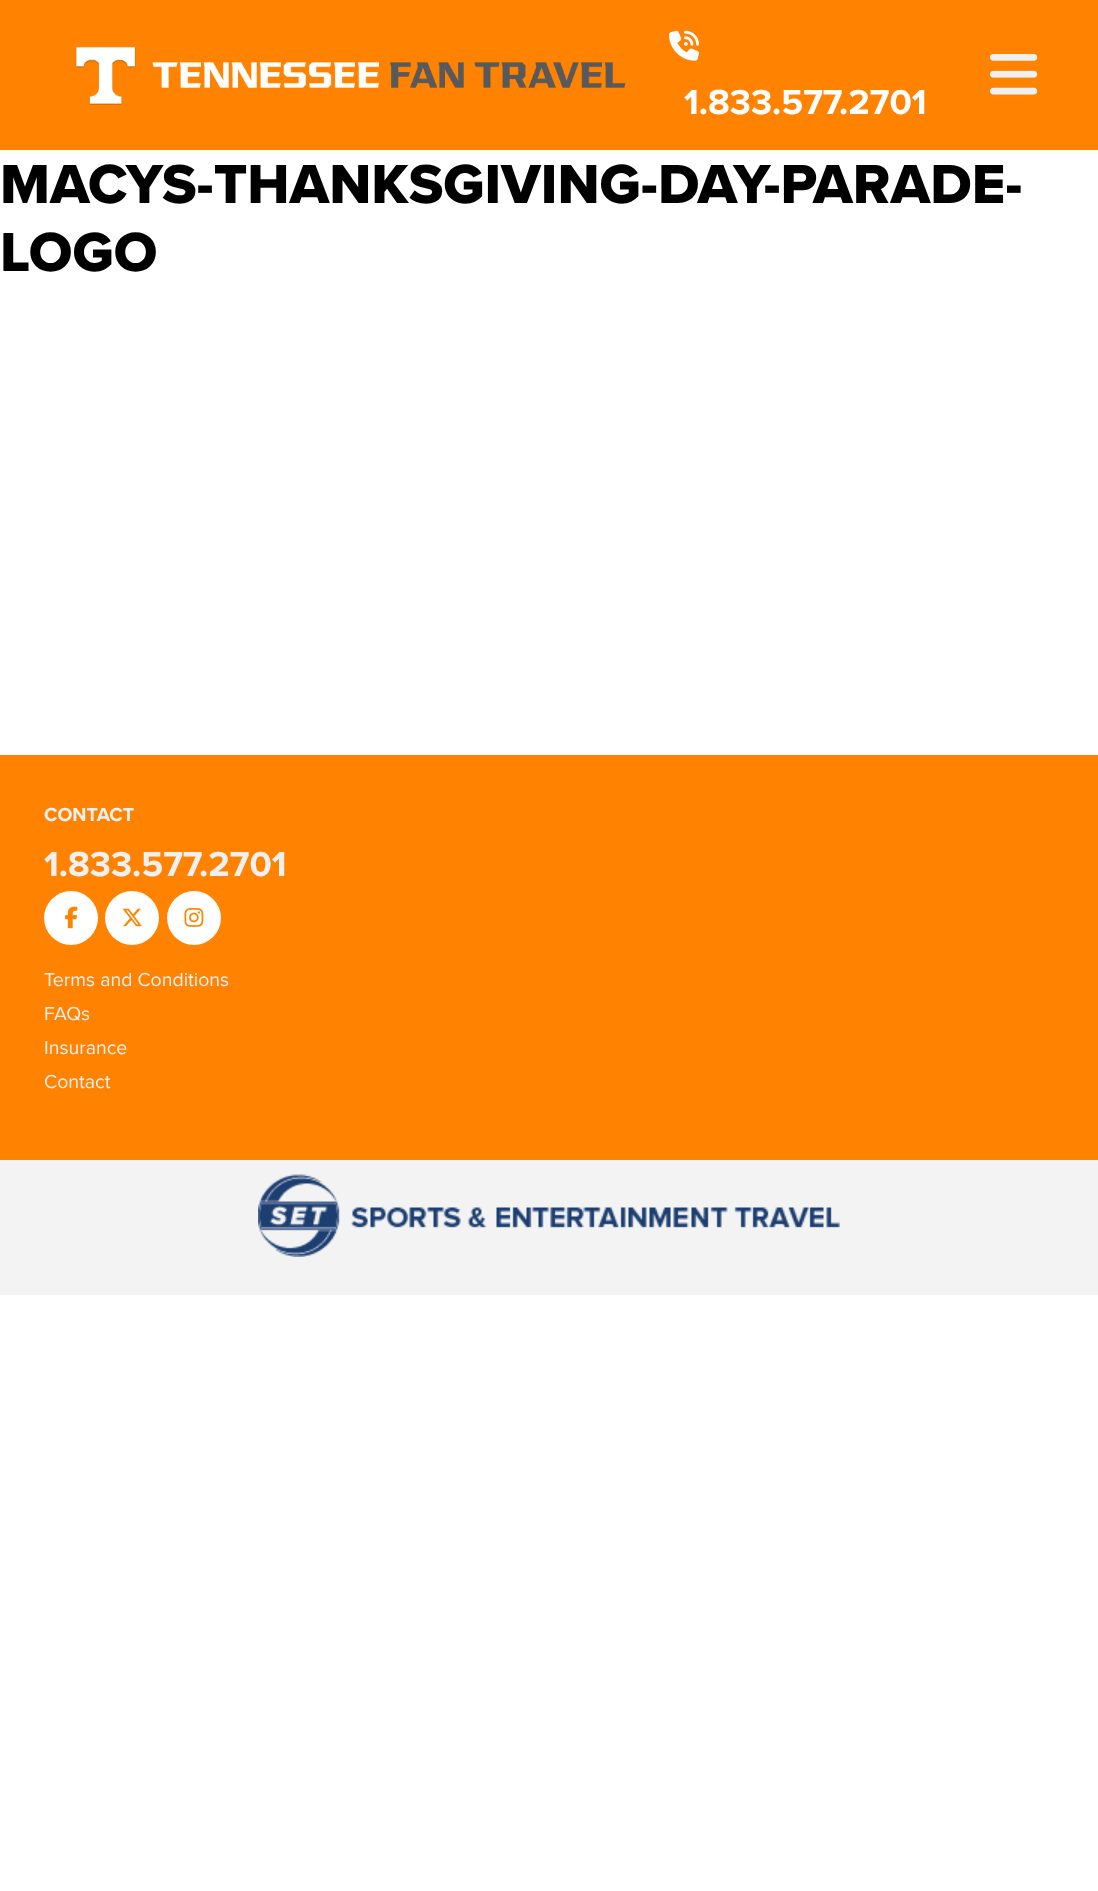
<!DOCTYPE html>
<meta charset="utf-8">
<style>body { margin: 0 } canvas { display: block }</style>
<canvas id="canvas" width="1098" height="1891"></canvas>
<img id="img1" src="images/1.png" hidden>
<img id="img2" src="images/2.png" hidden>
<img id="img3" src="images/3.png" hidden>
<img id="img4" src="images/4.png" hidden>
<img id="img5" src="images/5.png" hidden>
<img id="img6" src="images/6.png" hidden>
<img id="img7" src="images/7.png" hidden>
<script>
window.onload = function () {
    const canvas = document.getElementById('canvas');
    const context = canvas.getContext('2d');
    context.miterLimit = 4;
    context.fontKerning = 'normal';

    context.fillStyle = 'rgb(255, 255, 255)';
    context.fillRect(0, 0, 1098, 1891);
    context.fillStyle = 'rgb(255, 130, 0)';
    context.fillRect(0, 0, 1098, 150);
    context.drawImage(document.getElementById('img1'), 75, 47, 551, 58);
    context.drawImage(document.getElementById('img2'), 990, 54, 48, 41);
    context.drawImage(document.getElementById('img3'), 669, 30, 30, 31);
    context.fillRect(0, 755, 1098, 405);
    context.fillStyle = 'rgb(255, 255, 255)';
    context.beginPath();
    context.arc(71, 918, 27, 0, 2 * Math.PI);
    context.fill();
    context.drawImage(document.getElementById('img4'), 65, 906, 13, 23);
    context.beginPath();
    context.arc(132, 918, 27, 0, 2 * Math.PI);
    context.fill();
    context.drawImage(document.getElementById('img5'), 122, 908, 20, 19);
    context.beginPath();
    context.arc(194, 918, 27, 0, 2 * Math.PI);
    context.fill();
    context.drawImage(document.getElementById('img6'), 184, 908, 20, 19);
    context.fillStyle = 'rgb(244, 243, 243)';
    context.fillRect(0, 1160, 1098, 135);
    context.drawImage(document.getElementById('img7'), 258, 1174, 582, 83);
    context.font = 'bold 36px Proxima Nova';
    context.fillStyle = 'rgb(255, 255, 255)';
    context.fillText('1.833.577.2701', 684, 114);
    context.font = '800 57px Proxima Nova';
    context.fillStyle = 'rgb(0, 0, 0)';
    context.fillText('MACYS-THANKSGIVING-DAY-PARADE-', 0, 203);
    context.fillText('LOGO', 0, 271);
    context.font = 'bold 19.5px Proxima Nova';
    context.fillStyle = 'rgb(240, 240, 240)';
    context.fillText('CONTACT', 44, 821);
    context.font = 'bold 36px Proxima Nova';
    context.fillText('1.833.577.2701', 44, 876);
    context.font = '19.5px Proxima Nova';
    context.fillText('Terms and Conditions', 44, 986);
    context.fillText('FAQs', 44, 1020);
    context.fillText('Insurance', 44, 1054);
    context.fillText('Contact', 44, 1088);
};
</script>
